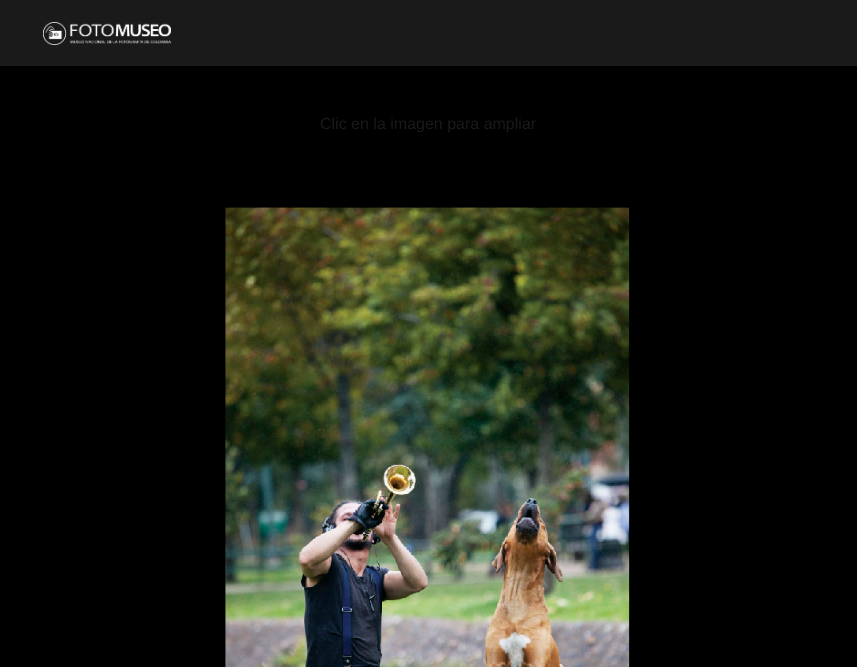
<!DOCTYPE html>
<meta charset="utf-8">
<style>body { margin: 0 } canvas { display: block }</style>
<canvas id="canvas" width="857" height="667"></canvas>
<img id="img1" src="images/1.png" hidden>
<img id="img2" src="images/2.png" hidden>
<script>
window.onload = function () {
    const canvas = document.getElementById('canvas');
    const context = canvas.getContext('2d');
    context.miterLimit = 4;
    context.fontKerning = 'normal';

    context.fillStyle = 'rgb(0, 0, 0)';
    context.fillRect(0, 0, 857, 667);
    context.fillStyle = 'rgb(26, 26, 26)';
    context.fillRect(0, 0, 857, 66);
    context.drawImage(document.getElementById('img1'), 43, 22, 128, 23);
    context.drawImage(document.getElementById('img2'), 225, 207, 405, 460);
    context.font = '16px Liberation Sans';
    context.fillText('Clic en la imagen para ampliar', 320, 129);
};
</script>
